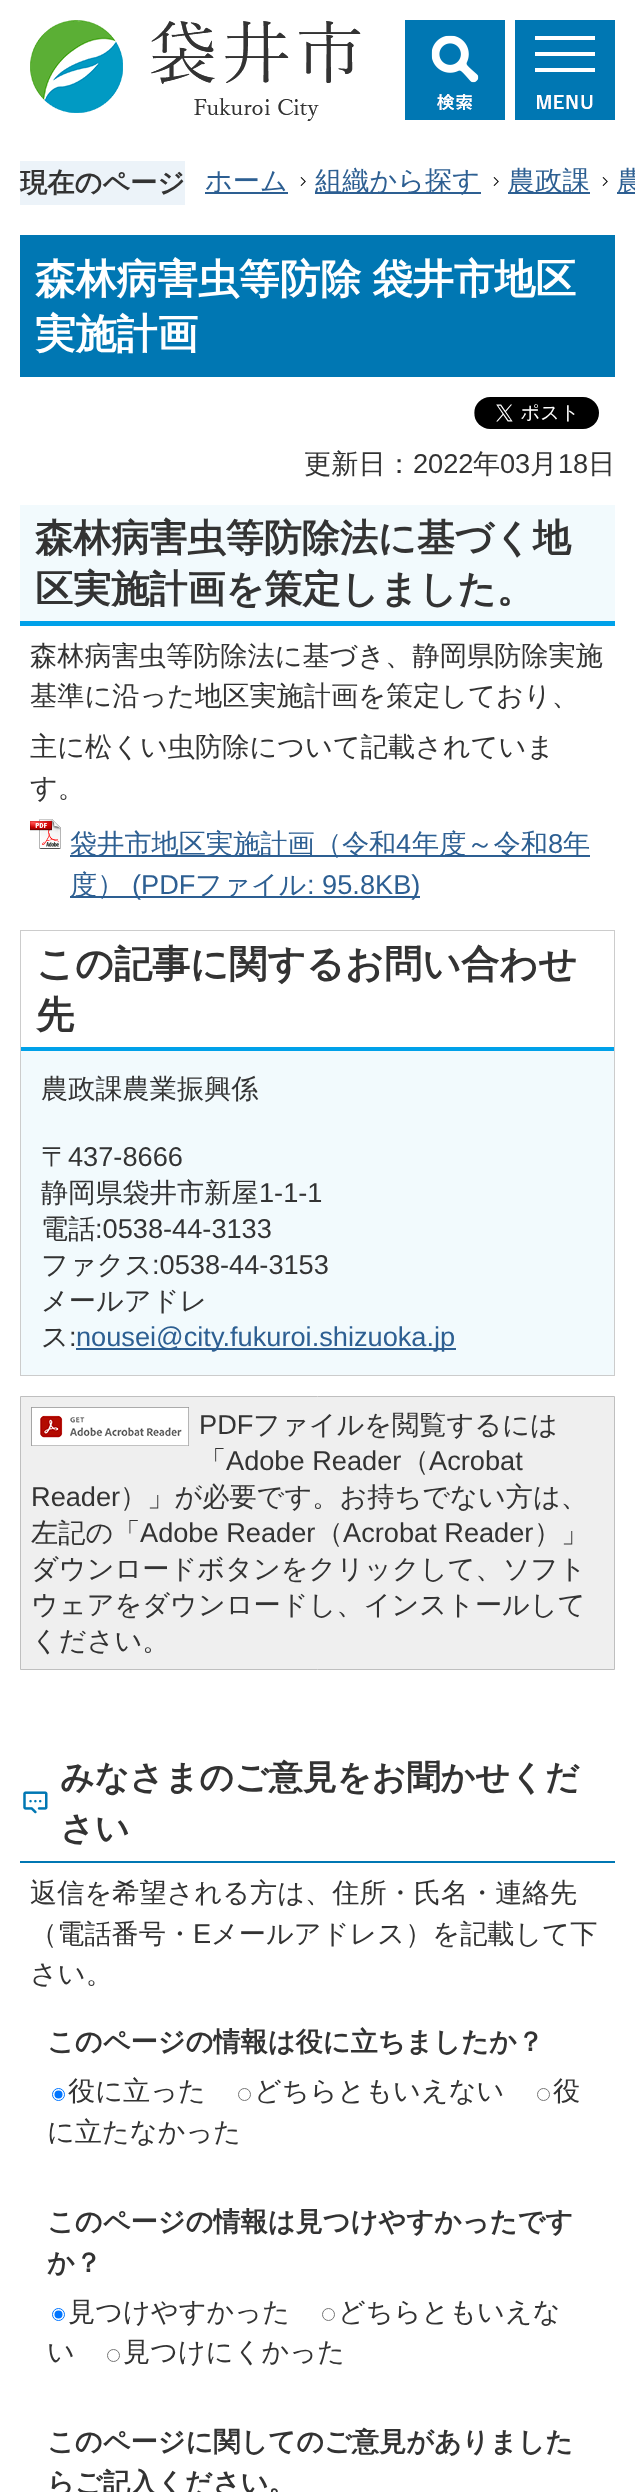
<!DOCTYPE html>
<meta charset="utf-8">
<style>body { margin: 0 } canvas { display: block }</style>
<canvas id="canvas" width="635" height="2492"></canvas>
<img id="img1" src="images/1.png" hidden>
<img id="img2" src="images/2.png" hidden>
<img id="img3" src="images/3.png" hidden>
<img id="img4" src="images/4.png" hidden>
<img id="img5" src="images/5.png" hidden>
<img id="img6" src="images/6.png" hidden>
<img id="img7" src="images/7.png" hidden>
<img id="img8" src="images/8.png" hidden>
<script>
window.onload = function () {
    const canvas = document.getElementById('canvas');
    const context = canvas.getContext('2d');
    context.miterLimit = 4;
    context.fontKerning = 'normal';

    context.fillStyle = 'rgb(255, 255, 255)';
    context.fillRect(0, 0, 635, 2492);
    context.drawImage(document.getElementById('img1'), 30, 20, 331, 101);
    context.drawImage(document.getElementById('img2'), 405, 20, 100, 100);
    context.drawImage(document.getElementById('img3'), 515, 20, 100, 100);
    context.fillStyle = 'rgb(236, 243, 249)';
    context.fillRect(20, 161, 165, 44);
    context.fillStyle = 'rgb(45, 95, 146)';
    context.fillRect(205, 192, 83, 2);
    context.drawImage(document.getElementById('img4'), 300, 177, 6, 9);
    context.fillRect(315, 192, 166, 2);
    context.drawImage(document.getElementById('img4'), 493, 177, 6, 9);
    context.fillRect(508, 192, 82, 2);
    context.drawImage(document.getElementById('img4'), 602, 177, 6, 9);
    context.fillRect(617, 192, 18, 2);
    context.fillStyle = 'rgb(0, 119, 179)';
    context.fillRect(20, 235, 595, 142);
    context.drawImage(document.getElementById('img5'), 474, 397, 125, 32);
    context.fillStyle = 'rgb(242, 250, 253)';
    context.fillRect(20, 505, 595, 116);
    context.fillStyle = 'rgb(0, 161, 233)';
    context.fillRect(20, 621, 595, 5);
    context.drawImage(document.getElementById('img6'), 30, 819, 31, 30);
    context.fillStyle = 'rgb(45, 95, 146)';
    context.fillRect(70, 855, 520, 2);
    context.fillRect(70, 896, 350, 2);
    context.strokeStyle = 'rgb(204, 204, 204)';
    context.strokeRect(20.5, 930.5, 594, 445);
    context.fillStyle = 'rgb(0, 161, 233)';
    context.fillRect(21, 1047, 593, 4);
    context.fillStyle = 'rgb(242, 250, 253)';
    context.fillRect(21, 1051, 593, 324);
    context.fillStyle = 'rgb(45, 95, 146)';
    context.fillRect(76, 1348, 380, 2);
    context.fillStyle = 'rgb(239, 239, 239)';
    context.beginPath();
    context.rect(20.5, 1396.5, 594, 273);
    context.fill();
    context.strokeStyle = 'rgb(191, 191, 191)';
    context.stroke();
    context.drawImage(document.getElementById('img7'), 31, 1407, 158, 39);
    context.drawImage(document.getElementById('img8'), 23, 1791, 25, 23);
    context.fillStyle = 'rgb(0, 119, 179)';
    context.fillRect(20, 1861, 595, 2);
    context.beginPath();
    context.arc(58.5, 2094.5, 6, 0, 2 * Math.PI);
    context.strokeStyle = 'rgb(0, 117, 255)';
    context.stroke();
    context.fillStyle = 'rgb(0, 117, 255)';
    context.beginPath();
    context.arc(58.5, 2094.5, 4, 0, 2 * Math.PI);
    context.fill();
    context.beginPath();
    context.arc(543.5, 2094.5, 6, 0, 2 * Math.PI);
    context.strokeStyle = 'rgb(118, 118, 118)';
    context.stroke();
    context.beginPath();
    context.arc(244.5, 2094.5, 6, 0, 2 * Math.PI);
    context.stroke();
    context.beginPath();
    context.arc(58.5, 2314.5, 6, 0, 2 * Math.PI);
    context.strokeStyle = 'rgb(0, 117, 255)';
    context.stroke();
    context.beginPath();
    context.arc(58.5, 2314.5, 4, 0, 2 * Math.PI);
    context.fill();
    context.beginPath();
    context.arc(328.5, 2314.5, 6, 0, 2 * Math.PI);
    context.strokeStyle = 'rgb(118, 118, 118)';
    context.stroke();
    context.beginPath();
    context.arc(113.5, 2355.5, 6, 0, 2 * Math.PI);
    context.stroke();
    context.font = 'bold 27.2px WenQuanYi Zen Hei';
    context.fillStyle = 'rgb(51, 51, 51)';
    context.fillText('現在のページ', 20, 192);
    context.font = '500 27.2px WenQuanYi Zen Hei';
    context.fillStyle = 'rgb(45, 95, 146)';
    context.fillText('ホーム', 205, 190);
    context.fillText('組織から探す', 315, 190);
    context.fillText('農政課', 508, 190);
    context.fillText('農', 617, 190);
    context.wordSpacing = '-1px';
    context.font = 'bold 40.75px WenQuanYi Zen Hei';
    context.fillStyle = 'rgb(255, 255, 255)';
    context.fillText('森林病害虫等防除 袋井市地区', 35, 293);
    context.wordSpacing = '0px';
    context.fillText('実施計画', 35, 348);
    context.font = '500 27.2px WenQuanYi Zen Hei';
    context.fillStyle = 'rgb(51, 51, 51)';
    context.fillText('更新日：', 304, 473);
    context.font = '27.2px Liberation Sans';
    context.fillText('2022', 413, 473);
    context.font = '500 27.2px WenQuanYi Zen Hei';
    context.fillText('年', 473, 473);
    context.font = '27.2px Liberation Sans';
    context.fillText('03', 500, 473);
    context.font = '500 27.2px WenQuanYi Zen Hei';
    context.fillText('月', 530, 473);
    context.font = '27.2px Liberation Sans';
    context.fillText('18', 558, 473);
    context.font = '500 27.2px WenQuanYi Zen Hei';
    context.fillText('日', 588, 473);
    context.font = 'bold 38.1px WenQuanYi Zen Hei';
    context.fillText('森林病害虫等防除法に基づく地', 35, 551);
    context.fillText('区実施計画を策定しました。', 35, 602);
    context.font = '500 27.2px WenQuanYi Zen Hei';
    context.fillText('森林病害虫等防除法に基づき、静岡県防除実施', 30, 665);
    context.fillText('基準に沿った地区実施計画を策定しており、', 30, 705);
    context.fillText('主に松くい虫防除について記載されていま', 30, 756);
    context.fillText('す。', 30, 797);
    context.fillStyle = 'rgb(45, 95, 146)';
    context.fillText('袋井市地区実施計画（令和', 70, 853);
    context.font = '27.2px Liberation Sans';
    context.fillText('4', 396, 853);
    context.font = '500 27.2px WenQuanYi Zen Hei';
    context.fillText('年度～令和', 412, 853);
    context.font = '27.2px Liberation Sans';
    context.fillText('8', 548, 853);
    context.font = '500 27.2px WenQuanYi Zen Hei';
    context.fillText('年', 563, 853);
    context.fillText('度）', 70, 894);
    context.font = '27.2px Liberation Sans';
    context.fillText('(PDF', 132, 894);
    context.font = '500 27.2px WenQuanYi Zen Hei';
    context.fillText('ファイル', 195, 894);
    context.font = '27.2px Liberation Sans';
    context.fillText(': 95.8KB)', 307, 894);
    context.font = 'bold 38.1px WenQuanYi Zen Hei';
    context.fillStyle = 'rgb(51, 51, 51)';
    context.fillText('この記事に関するお問い合わせ', 36, 977);
    context.fillText('先', 36, 1028);
    context.font = '500 27.2px WenQuanYi Zen Hei';
    context.fillText('農政課農業振興係', 41, 1098);
    context.fillText('〒', 41, 1166);
    context.font = '27.2px Liberation Sans';
    context.fillText('437-8666', 68, 1166);
    context.font = '500 27.2px WenQuanYi Zen Hei';
    context.fillText('静岡県袋井市新屋', 41, 1202);
    context.font = '27.2px Liberation Sans';
    context.fillText('1-1-1', 259, 1202);
    context.font = '500 27.2px WenQuanYi Zen Hei';
    context.fillText('電話', 41, 1238);
    context.font = '27.2px Liberation Sans';
    context.fillText(':0538-44-3133', 95, 1238);
    context.font = '500 27.2px WenQuanYi Zen Hei';
    context.fillText('ファクス', 41, 1274);
    context.font = '27.2px Liberation Sans';
    context.fillText(':0538-44-3153', 152, 1274);
    context.font = '500 27.2px WenQuanYi Zen Hei';
    context.fillText('メールアドレ', 41, 1310);
    context.fillText('ス', 41, 1346);
    context.font = '27.2px Liberation Sans';
    context.fillText(':', 69, 1346);
    context.fillStyle = 'rgb(45, 95, 146)';
    context.fillText('nousei@city.fukuroi.shizuoka.jp', 76, 1346);
    context.fillStyle = 'rgb(51, 51, 51)';
    context.fillText('PDF', 199, 1434);
    context.font = '500 27.2px WenQuanYi Zen Hei';
    context.fillText('ファイルを閲覧するには', 253, 1434);
    context.fillText('「', 199, 1470);
    context.font = '27.2px Liberation Sans';
    context.fillText('Adobe Reader', 226, 1470);
    context.font = '500 27.2px WenQuanYi Zen Hei';
    context.fillText('（', 402, 1470);
    context.font = '27.2px Liberation Sans';
    context.fillText('Acrobat', 429, 1470);
    context.fillText('Reader', 31, 1506);
    context.font = '500 27.2px WenQuanYi Zen Hei';
    context.fillText('）」が必要です。お持ちでない方は、', 120, 1506);
    context.fillText('左記の「', 31, 1542);
    context.font = '27.2px Liberation Sans';
    context.fillText('Adobe Reader', 140, 1542);
    context.font = '500 27.2px WenQuanYi Zen Hei';
    context.fillText('（', 316, 1542);
    context.font = '27.2px Liberation Sans';
    context.fillText('Acrobat Reader', 343, 1542);
    context.font = '500 27.2px WenQuanYi Zen Hei';
    context.fillText('）」', 534, 1542);
    context.fillText('ダウンロードボタンをクリックして、ソフト', 31, 1578);
    context.fillText('ウェアをダウンロードし、インストールして', 31, 1614);
    context.fillText('ください。', 31, 1650);
    context.font = 'bold 34px WenQuanYi Zen Hei';
    context.fillText('みなさまのご意見をお聞かせくだ', 60, 1789);
    context.fillText('さい', 60, 1840);
    context.font = '500 27.2px WenQuanYi Zen Hei';
    context.fillText('返信を希望される方は、住所・氏名・連絡先', 30, 1902);
    context.fillText('（電話番号・', 30, 1943);
    context.font = '27.2px Liberation Sans';
    context.fillText('E', 193, 1943);
    context.font = '500 27.2px WenQuanYi Zen Hei';
    context.fillText('メールアドレス）を記載して下', 211, 1943);
    context.fillText('さい。', 30, 1983);
    context.font = 'bold 27.2px WenQuanYi Zen Hei';
    context.fillText('このページの情報は役に立ちましたか？', 47, 2051);
    context.font = '500 27.2px WenQuanYi Zen Hei';
    context.fillText('役に立った', 68, 2100);
    context.fillText('役', 553, 2100);
    context.fillText('に立たなかった', 47, 2141);
    context.fillText('どちらともいえない', 254, 2100);
    context.font = 'bold 27.2px WenQuanYi Zen Hei';
    context.fillText('このページの情報は見つけやすかったです', 47, 2231);
    context.fillText('か？', 47, 2272);
    context.font = '500 27.2px WenQuanYi Zen Hei';
    context.fillText('見つけやすかった', 68, 2321);
    context.fillText('どちらともいえな', 338, 2321);
    context.fillText('い', 47, 2361);
    context.fillText('見つけにくかった', 123, 2361);
    context.font = 'bold 27.2px WenQuanYi Zen Hei';
    context.fillText('このページに関してのご意見がありました', 47, 2451);
    context.fillText('らご記入ください。', 47, 2492);
};
</script>
